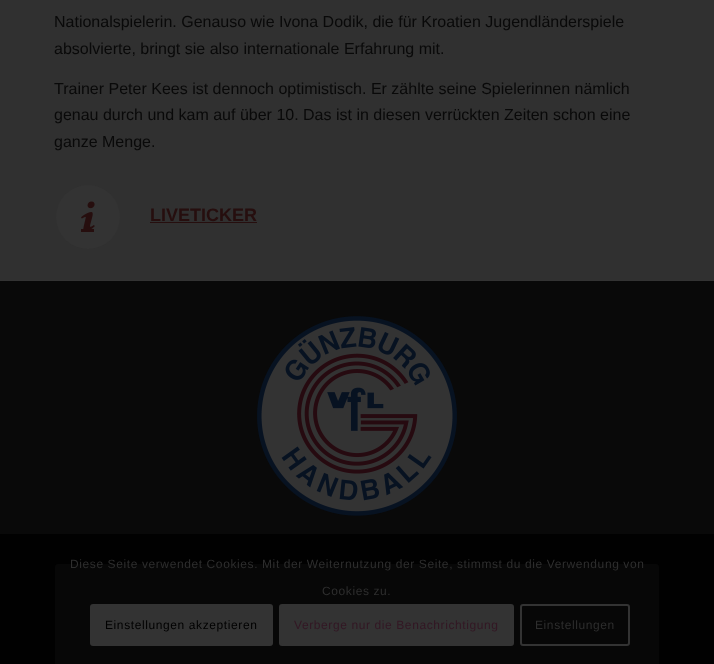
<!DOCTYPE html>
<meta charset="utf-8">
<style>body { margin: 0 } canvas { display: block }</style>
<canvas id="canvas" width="714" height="664"></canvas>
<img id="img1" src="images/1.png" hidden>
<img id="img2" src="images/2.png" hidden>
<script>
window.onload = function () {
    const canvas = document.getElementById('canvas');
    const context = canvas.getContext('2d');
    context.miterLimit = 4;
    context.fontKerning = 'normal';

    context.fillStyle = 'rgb(48, 48, 48)';
    context.fillRect(0, 0, 714, 664);
    context.fillStyle = 'rgb(51, 51, 51)';
    context.beginPath();
    context.arc(88, 217, 32, 0, 2 * Math.PI);
    context.fill();
    context.drawImage(document.getElementById('img1'), 81, 201, 14, 28);
    context.fillStyle = 'rgb(38, 14, 14)';
    context.fillRect(81, 229, 13, 3);
    context.fillRect(150, 222, 107, 1);
    context.fillStyle = 'rgb(51, 51, 51)';
    context.fillRect(0, 280, 714, 1);
    context.fillStyle = 'rgb(9, 9, 9)';
    context.fillRect(0, 281, 714, 253);
    context.fillStyle = 'rgb(1, 1, 1)';
    context.fillRect(0, 534, 714, 130);
    context.drawImage(document.getElementById('img2'), 257, 316, 200, 200);
    context.fillStyle = 'rgb(7, 7, 7)';
    context.beginPath();
    context.roundRect(55, 564, 604, 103, 3);
    context.fill();
    context.fillStyle = 'rgb(51, 51, 51)';
    context.beginPath();
    context.roundRect(90, 604, 183, 42, 3);
    context.fill();
    context.beginPath();
    context.roundRect(280, 605, 233, 40, 2);
    context.fill();
    context.strokeStyle = 'rgb(51, 51, 51)';
    context.lineWidth = 2;
    context.stroke();
    context.beginPath();
    context.roundRect(521, 605, 108, 40, 2);
    context.stroke();
    context.font = '16px Liberation Sans';
    context.fillStyle = 'rgb(9, 9, 9)';
    context.fillText('Nationalspielerin. Genauso wie Ivona Dodik, die für Kroatien Jugendländerspiele', 54, 27);
    context.fillText('absolvierte, bringt sie also internationale Erfahrung mit.', 54, 54);
    context.fillText('Trainer Peter Kees ist dennoch optimistisch. Er zählte seine Spielerinnen nämlich', 54, 94);
    context.fillText('genau durch und kam auf über 10. Das ist in diesen verrückten Zeiten schon eine', 54, 120);
    context.fillText('ganze Menge.', 54, 147);
    context.font = 'bold 18px Liberation Sans';
    context.fillStyle = 'rgb(38, 14, 14)';
    context.fillText('LIVETICKER', 150, 221);
    context.letterSpacing = '0.6px';
    context.font = '12px Liberation Sans';
    context.fillStyle = 'rgb(46, 46, 46)';
    context.fillText('Diese Seite verwendet Cookies. Mit der Weiternutzung der Seite, stimmst du die Verwendung von', 70, 568);
    context.fillText('Cookies zu.', 322, 595);
    context.fillStyle = 'rgb(0, 0, 0)';
    context.fillText('Einstellungen akzeptieren', 105, 629);
    context.fillStyle = 'rgb(51, 23, 36)';
    context.fillText('Verberge nur die Benachrichtigung', 294, 629);
    context.fillStyle = 'rgb(46, 46, 46)';
    context.fillText('Einstellungen', 535, 629);
};
</script>
